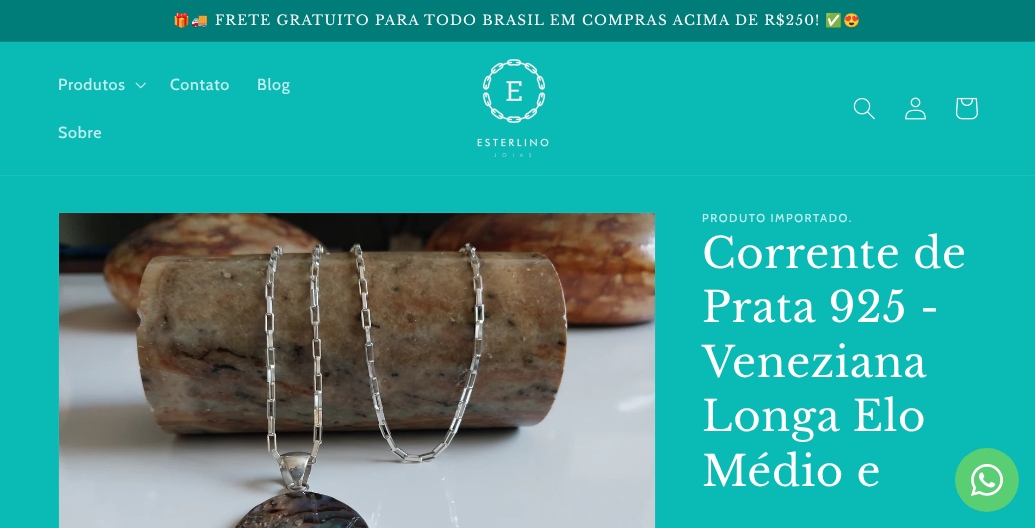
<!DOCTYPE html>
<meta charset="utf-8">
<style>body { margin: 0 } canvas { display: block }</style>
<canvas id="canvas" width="1035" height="528"></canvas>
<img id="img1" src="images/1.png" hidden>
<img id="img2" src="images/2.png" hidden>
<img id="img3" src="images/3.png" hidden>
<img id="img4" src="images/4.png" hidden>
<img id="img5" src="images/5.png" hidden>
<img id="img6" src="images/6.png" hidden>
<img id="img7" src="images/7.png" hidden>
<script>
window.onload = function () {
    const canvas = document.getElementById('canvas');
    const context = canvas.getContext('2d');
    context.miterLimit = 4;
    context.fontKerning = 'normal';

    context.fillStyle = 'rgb(10, 186, 181)';
    context.fillRect(0, 0, 1035, 528);
    context.fillStyle = 'rgb(0, 124, 121)';
    context.fillRect(0, 0, 1035, 41);
    context.fillStyle = 'rgb(20, 134, 132)';
    context.fillRect(0, 41, 1035, 1);
    context.fillStyle = 'rgb(30, 192, 187)';
    context.fillRect(0, 175, 1035, 1);
    context.drawImage(document.getElementById('img1'), 135, 82, 11, 7);
    context.drawImage(document.getElementById('img2'), 477, 59, 72, 98);
    context.drawImage(document.getElementById('img3'), 853, 98, 22, 22);
    context.drawImage(document.getElementById('img4'), 905, 97, 21, 23);
    context.drawImage(document.getElementById('img5'), 955, 97, 23, 23);
    context.strokeStyle = 'rgb(22, 189, 185)';
    context.strokeRect(58.5, 212.5, 597, 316);
    context.drawImage(document.getElementById('img6'), 59, 213, 596, 315);
    context.fillStyle = 'rgb(89, 206, 114)';
    context.beginPath();
    context.arc(987, 480, 32, 0, 2 * Math.PI);
    context.fill();
    context.drawImage(document.getElementById('img7'), 971, 464, 32, 32);
    context.letterSpacing = '1.15px';
    context.font = '13.65px Noto Color Emoji';
    context.fillStyle = 'rgb(255, 255, 255)';
    context.fillText('🎁🚚', 173, 25);
    context.font = '13.65px Libre Baskerville';
    context.fillText('FRETE GRATUITO PARA TODO BRASIL EM COMPRAS ACIMA DE R$250!', 215, 25);
    context.font = '13.65px Noto Color Emoji';
    context.fillText('✅😍', 825, 25);
    context.letterSpacing = '0.75px';
    context.font = '500 16px Cabin';
    context.fillStyle = 'rgb(194, 238, 237)';
    context.fillText('Produtos', 58, 90);
    context.fillText('Contato', 170, 90);
    context.fillText('Blog', 257, 90);
    context.fillText('Sobre', 58, 138);
    context.letterSpacing = '1.5px';
    context.font = '500 11.5px Cabin';
    context.fillText('PRODUTO IMPORTADO.', 702, 222);
    context.letterSpacing = '0.6px';
    context.font = '42px Libre Baskerville';
    context.fillStyle = 'rgb(255, 255, 255)';
    context.fillText('Corrente de', 702, 268);
    context.fillText('Prata 925 -', 702, 322);
    context.fillText('Veneziana', 702, 377);
    context.fillText('Longa Elo', 702, 431);
    context.fillText('Médio e', 702, 486);
};
</script>
